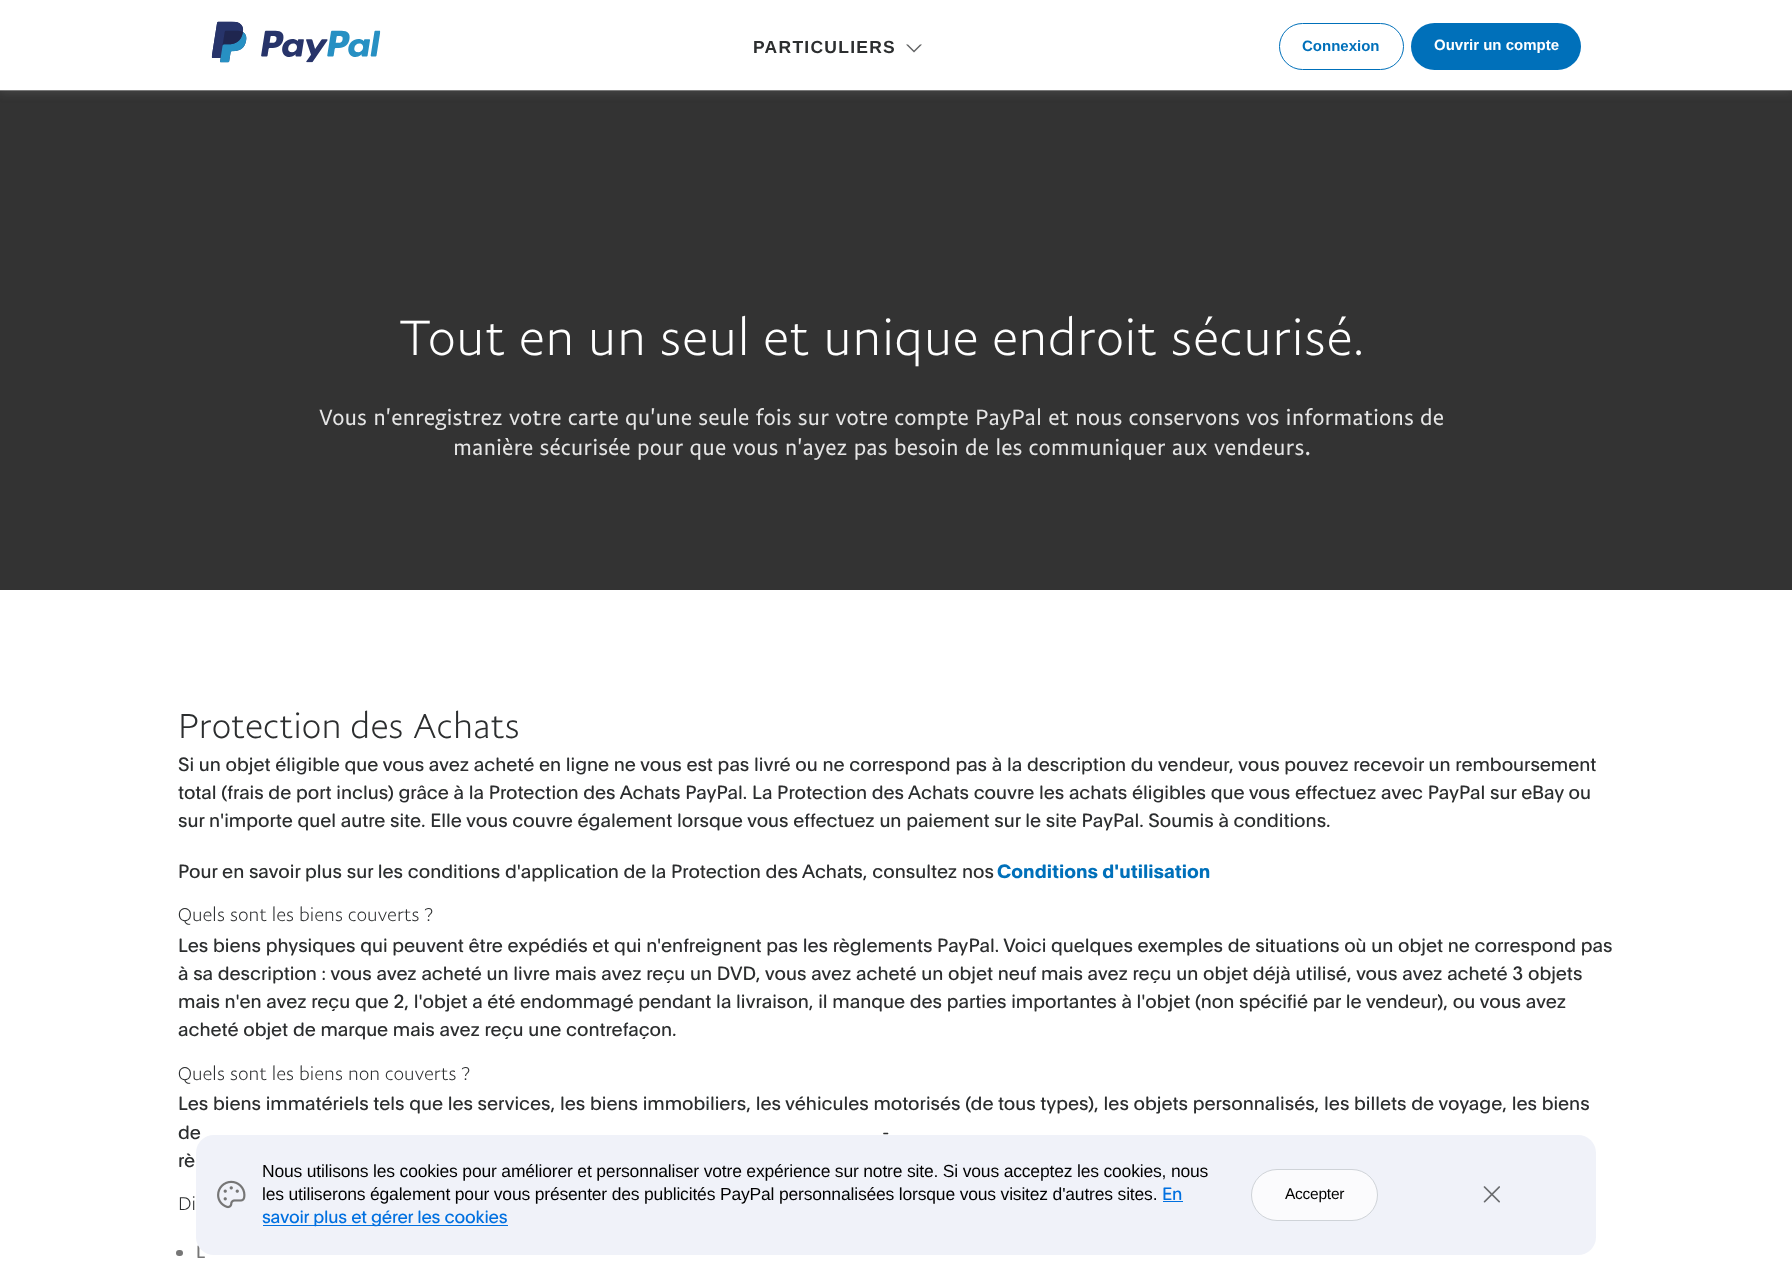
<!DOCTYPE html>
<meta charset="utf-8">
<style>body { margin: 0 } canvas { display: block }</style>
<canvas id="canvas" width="1792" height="1272"></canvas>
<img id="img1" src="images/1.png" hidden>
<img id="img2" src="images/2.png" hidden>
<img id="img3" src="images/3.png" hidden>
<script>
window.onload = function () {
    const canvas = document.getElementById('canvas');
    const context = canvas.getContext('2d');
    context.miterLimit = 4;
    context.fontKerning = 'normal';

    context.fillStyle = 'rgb(255, 255, 255)';
    context.fillRect(0, 0, 1792, 1272);
    context.fillStyle = 'rgb(51, 51, 51)';
    context.fillRect(0, 90, 1792, 500);
    context.fillStyle = 'rgba(255, 255, 255, 0.2)';
    context.filter = 'blur(6px)';
    context.beginPath();
    context.rect(-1, -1, 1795, 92);
    context.fill();
    context.filter = 'none';
    context.fillStyle = 'rgba(0, 0, 0, 0.2)';
    context.filter = 'blur(6px)';
    context.beginPath();
    context.rect(-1, -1, 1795, 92);
    context.fill();
    context.filter = 'none';
    context.fillStyle = 'rgb(255, 255, 255)';
    context.fillRect(0, 0, 1792, 90);
    context.drawImage(document.getElementById('img1'), 211, 21, 170, 42);
    context.fillStyle = 'rgb(97, 98, 99)';
    context.beginPath();
    context.moveTo(922, 44.5);
    context.lineTo(914, 52.5);
    context.lineTo(914, 50.5);
    context.lineTo(920, 44.5);
    context.closePath();
    context.moveTo(914, 52.5);
    context.lineTo(906, 44.5);
    context.lineTo(908, 44.5);
    context.lineTo(914, 50.5);
    context.closePath();
    context.fill();
    context.beginPath();
    context.roundRect(1279.5, 23.5, 124, 46, 23);
    context.strokeStyle = 'rgb(0, 112, 186)';
    context.stroke();
    context.fillStyle = 'rgb(0, 112, 186)';
    context.beginPath();
    context.roundRect(1411, 23, 170, 47, 23.5);
    context.fill();
    context.fillStyle = 'rgba(255, 255, 255, 0.3)';
    context.fillRect(0, 90, 1792, 1);
    context.fillStyle = 'rgb(118, 118, 118)';
    context.beginPath();
    context.roundRect(176, 1250, 7, 6, 3);
    context.fill();
    context.letterSpacing = '1.25px';
    context.font = 'bold 17.5px Liberation Sans';
    context.fillStyle = 'rgb(44, 46, 47)';
    context.fillText('PARTICULIERS', 753, 53);
    context.letterSpacing = '0px';
    context.font = 'bold 15px Liberation Sans';
    context.fillStyle = 'rgb(0, 112, 186)';
    context.fillText('Connexion', 1302, 51);
    context.fillStyle = 'rgb(255, 255, 255)';
    context.fillText('Ouvrir un compte', 1434, 50);
    context.letterSpacing = '1px';
    context.font = '300 50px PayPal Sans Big';
    context.fillText('Tout en un seul et unique endroit sécurisé.', 399, 355);
    context.letterSpacing = '0px';
    context.font = '22.5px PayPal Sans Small';
    context.fillStyle = 'rgb(230, 230, 230)';
    context.fillText('Vous n\'enregistrez votre carte qu\'une seule fois sur votre compte PayPal et nous conservons vos informations de', 319, 425);
    context.fillText('manière sécurisée pour que vous n\'ayez pas besoin de les communiquer aux vendeurs.', 453, 455);
    context.letterSpacing = '0.35px';
    context.font = '300 35px PayPal Sans Big';
    context.fillStyle = 'rgb(44, 46, 47)';
    context.fillText('Protection des Achats', 178, 738);
    context.letterSpacing = '0px';
    context.font = '18.75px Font';
    context.fillText('Si un objet éligible que vous avez acheté en ligne ne vous est pas livré ou ne correspond pas à la description du vendeur, vous pouvez recevoir un remboursement', 178, 771);
    context.fillText('total (frais de port inclus) grâce à la Protection des Achats PayPal. La Protection des Achats couvre les achats éligibles que vous effectuez avec PayPal sur eBay ou', 178, 799);
    context.fillText('sur n\'importe quel autre site. Elle vous couvre également lorsque vous effectuez un paiement sur le site PayPal. Soumis à conditions.', 178, 827);
    context.fillText('Pour en savoir plus sur les conditions d\'application de la Protection des Achats, consultez nos', 178, 878);
    context.font = 'bold 18.75px Font';
    context.fillStyle = 'rgb(0, 112, 186)';
    context.fillText('Conditions d\'utilisation', 997, 878);
    context.letterSpacing = '0.2px';
    context.font = '300 18.75px PayPal Sans Big';
    context.fillStyle = 'rgb(44, 46, 47)';
    context.fillText('Quels sont les biens couverts ?', 178, 921);
    context.letterSpacing = '0px';
    context.font = '18.75px Font';
    context.fillText('Les biens physiques qui peuvent être expédiés et qui n\'enfreignent pas les règlements PayPal. Voici quelques exemples de situations où un objet ne correspond pas', 178, 952);
    context.fillText('à sa description : vous avez acheté un livre mais avez reçu un DVD, vous avez acheté un objet neuf mais avez reçu un objet déjà utilisé, vous avez acheté 3 objets', 178, 980);
    context.fillText('mais n\'en avez reçu que 2, l\'objet a été endommagé pendant la livraison, il manque des parties importantes à l\'objet (non spécifié par le vendeur), ou vous avez', 178, 1008);
    context.fillText('acheté objet de marque mais avez reçu une contrefaçon.', 178, 1036);
    context.letterSpacing = '0.2px';
    context.font = '300 18.75px PayPal Sans Big';
    context.fillText('Quels sont les biens non couverts ?', 178, 1080);
    context.letterSpacing = '0px';
    context.font = '18.75px Font';
    context.fillText('Les biens immatériels tels que les services, les biens immobiliers, les véhicules motorisés (de tous types), les objets personnalisés, les billets de voyage, les biens', 178, 1110);
    context.fillText('de', 178, 1139);
    context.fillText('-', 882, 1139);
    context.fillText('rè', 178, 1167);
    context.letterSpacing = '0.2px';
    context.font = '300 18.75px PayPal Sans Big';
    context.fillText('Di', 178, 1210);
    context.letterSpacing = '0px';
    context.font = '17.5px Font';
    context.fillStyle = 'rgb(118, 118, 118)';
    context.fillText('L', 196, 1258);
    context.fillStyle = 'rgb(240, 242, 249)';
    context.beginPath();
    context.roundRect(196, 1135, 1400, 120, 18);
    context.fill();
    context.drawImage(document.getElementById('img2'), 217, 1180, 29, 29);
    context.letterSpacing = '-0.18px';
    context.font = '17.5px Liberation Sans';
    context.fillStyle = 'rgb(0, 0, 0)';
    context.fillText('Nous utilisons les cookies pour améliorer et personnaliser votre expérience sur notre site. Si vous acceptez les cookies, nous', 262, 1177);
    context.fillText('les utiliserons également pour vous présenter des publicités PayPal personnalisées lorsque vous visitez d\'autres sites.', 262, 1200);
    context.font = '17.5px Font';
    context.fillStyle = 'rgb(0, 112, 224)';
    context.fillText('En', 1162, 1200);
    context.fillRect(1163, 1201, 20, 1);
    context.fillRect(263, 1225, 245, 1);
    context.fillText('savoir plus et gérer les cookies', 262, 1223);
    context.fillStyle = 'rgb(251, 251, 253)';
    context.beginPath();
    context.roundRect(1251.5, 1169.5, 126, 51, 25.5);
    context.fill();
    context.strokeStyle = 'rgb(207, 211, 216)';
    context.stroke();
    context.letterSpacing = '-0.25px';
    context.font = '15.5px Liberation Sans';
    context.fillStyle = 'rgb(0, 0, 0)';
    context.fillText('Accepter', 1285, 1199);
    context.drawImage(document.getElementById('img3'), 1483, 1186, 17, 17);
};
</script>
